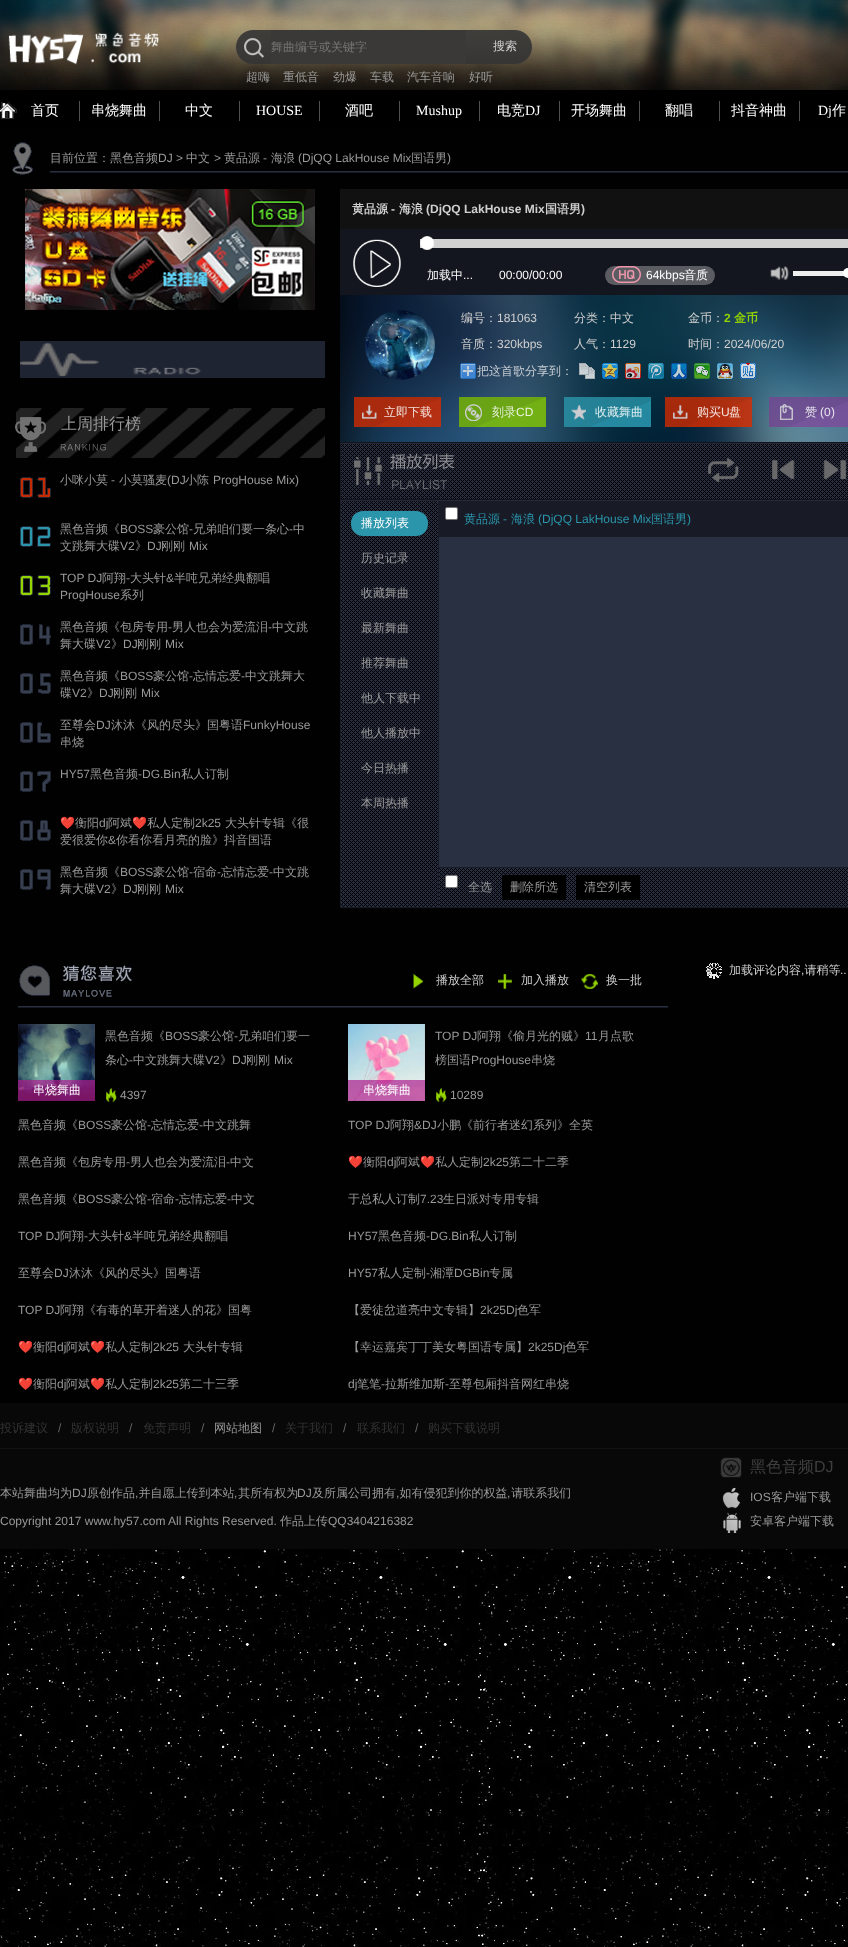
<!DOCTYPE html>
<meta charset="utf-8">
<style>body { margin: 0 } canvas { display: block }</style>
<canvas id="canvas" width="848" height="1947"></canvas>
<img id="img1" src="images/1.png" hidden>
<img id="img2" src="images/2.png" hidden>
<img id="img3" src="images/3.png" hidden>
<img id="img4" src="images/4.png" hidden>
<img id="img5" src="images/5.png" hidden>
<img id="img6" src="images/6.png" hidden>
<img id="img7" src="images/7.png" hidden>
<img id="img8" src="images/8.png" hidden>
<img id="img9" src="images/9.png" hidden>
<img id="img10" src="images/10.png" hidden>
<img id="img11" src="images/11.png" hidden>
<img id="img12" src="images/12.png" hidden>
<img id="img13" src="images/13.png" hidden>
<img id="img14" src="images/14.png" hidden>
<img id="img15" src="images/15.png" hidden>
<img id="img16" src="images/16.png" hidden>
<img id="img17" src="images/17.png" hidden>
<img id="img18" src="images/18.png" hidden>
<img id="img19" src="images/19.png" hidden>
<img id="img20" src="images/20.png" hidden>
<img id="img21" src="images/21.png" hidden>
<img id="img22" src="images/22.png" hidden>
<img id="img23" src="images/23.png" hidden>
<img id="img24" src="images/39.png" hidden>
<img id="img25" src="images/24.png" hidden>
<img id="img26" src="images/25.png" hidden>
<img id="img27" src="images/26.png" hidden>
<img id="img28" src="images/27.png" hidden>
<img id="img29" src="images/28.png" hidden>
<img id="img30" src="images/29.png" hidden>
<img id="img31" src="images/30.png" hidden>
<img id="img32" src="images/31.png" hidden>
<img id="img33" src="images/32.png" hidden>
<img id="img34" src="images/33.png" hidden>
<img id="img35" src="images/34.png" hidden>
<img id="img36" src="images/35.png" hidden>
<img id="img37" src="images/36.png" hidden>
<img id="img38" src="images/37.png" hidden>
<img id="img39" src="images/38.png" hidden>
<img id="img40" src="images/40.png" hidden>
<img id="img41" src="images/41.png" hidden>
<img id="img42" src="images/42.png" hidden>
<img id="img43" src="images/43.png" hidden>
<img id="img44" src="images/44.png" hidden>
<img id="img45" src="images/45.png" hidden>
<img id="img46" src="images/46.png" hidden>
<img id="img47" src="images/47.png" hidden>
<img id="img48" src="images/48.png" hidden>
<img id="img49" src="images/49.png" hidden>
<img id="img50" src="images/50.png" hidden>
<img id="img51" src="images/51.png" hidden>
<img id="img52" src="images/52.png" hidden>
<img id="img53" src="images/53.png" hidden>
<img id="img54" src="images/54.png" hidden>
<img id="img55" src="images/55.png" hidden>
<img id="img56" src="images/56.png" hidden>
<img id="img57" src="images/57.png" hidden>
<script>
window.onload = function () {
    const canvas = document.getElementById('canvas');
    const context = canvas.getContext('2d');
    context.miterLimit = 4;
    context.fontKerning = 'normal';

    context.fillStyle = 'rgb(255, 255, 255)';
    context.fillRect(0, 0, 848, 1947);
    context.drawImage(document.getElementById('img1'), 0, 1549, 848, 398);
    context.drawImage(document.getElementById('img2'), 0, 0, 848, 90);
    context.drawImage(document.getElementById('img3'), 8, 32, 151, 33);
    context.drawImage(document.getElementById('img4'), 236, 30, 296, 34);
    context.fillStyle = 'rgb(59, 57, 55)';
    context.fillRect(271, 30, 195, 34);
    context.fillStyle = 'rgb(0, 0, 0)';
    context.fillRect(0, 90, 848, 39);
    context.drawImage(document.getElementById('img5'), 0, 102, 17, 17);
    context.fillStyle = 'rgb(80, 80, 80)';
    context.fillRect(79, 101, 1, 20);
    context.fillRect(159, 101, 1, 20);
    context.fillRect(239, 101, 1, 20);
    context.fillRect(319, 101, 1, 20);
    context.fillRect(399, 101, 1, 20);
    context.fillRect(479, 101, 1, 20);
    context.fillRect(559, 101, 1, 20);
    context.fillRect(639, 101, 1, 20);
    context.fillRect(719, 101, 1, 20);
    context.fillRect(799, 101, 1, 20);
    context.fillStyle = 'rgb(1, 1, 1)';
    context.fillRect(0, 129, 848, 1274);
    context.drawImage(document.getElementById('img6'), 12, 142, 21, 33);
    context.drawImage(document.getElementById('img7'), 50, 171, 798, 2);
    context.drawImage(document.getElementById('img8'), 25, 189, 290, 121);
    context.drawImage(document.getElementById('img9'), 20, 341, 305, 37);
    context.drawImage(document.getElementById('img10'), 15, 408, 310, 50);
    context.drawImage(document.getElementById('img11'), 20, 477, 31, 21);
    context.drawImage(document.getElementById('img12'), 20, 526, 31, 21);
    context.drawImage(document.getElementById('img13'), 20, 575, 31, 21);
    context.drawImage(document.getElementById('img14'), 20, 624, 31, 21);
    context.drawImage(document.getElementById('img15'), 20, 673, 31, 21);
    context.drawImage(document.getElementById('img16'), 20, 722, 31, 21);
    context.drawImage(document.getElementById('img17'), 20, 771, 31, 21);
    context.drawImage(document.getElementById('img18'), 20, 820, 31, 21);
    context.drawImage(document.getElementById('img19'), 20, 869, 31, 21);
    context.fillStyle = 'rgb(17, 17, 17)';
    context.fillRect(340, 189, 508, 40);
    context.fillStyle = 'rgb(19, 22, 30)';
    context.fillRect(340, 229, 508, 66);
    context.fillStyle = 'rgb(209, 209, 209)';
    context.fillRect(420, 239, 428, 9);
    context.drawImage(document.getElementById('img20'), 420, 236, 14, 14);
    context.drawImage(document.getElementById('img21'), 353, 239, 48, 48);
    context.fillStyle = 'rgb(90, 92, 98)';
    context.beginPath();
    context.roundRect(605, 266, 110, 19, 9.5);
    context.fill();
    context.drawImage(document.getElementById('img22'), 612, 266, 29, 17);
    context.drawImage(document.getElementById('img23'), 770, 266, 20, 14);
    context.fillStyle = 'rgb(238, 238, 238)';
    context.fillRect(793, 271, 52, 5);
    context.fillStyle = 'rgb(255, 255, 255)';
    context.beginPath();
    context.arc(848, 273, 5, 0, 2 * Math.PI);
    context.fill();
    context.drawImage(document.getElementById('img24'), 340, 295, 508, 147);
    context.fillStyle = 'rgba(0, 0, 0, 0.3)';
    context.fillRect(340, 295, 508, 147);
    context.drawImage(document.getElementById('img25'), 365, 310, 70, 70);
    context.drawImage(document.getElementById('img26'), 460, 363, 16, 16);
    context.drawImage(document.getElementById('img27'), 579, 363, 16, 16);
    context.drawImage(document.getElementById('img28'), 602, 363, 16, 16);
    context.drawImage(document.getElementById('img29'), 625, 363, 16, 16);
    context.drawImage(document.getElementById('img30'), 648, 363, 16, 16);
    context.drawImage(document.getElementById('img31'), 671, 363, 16, 16);
    context.drawImage(document.getElementById('img32'), 694, 363, 16, 16);
    context.drawImage(document.getElementById('img33'), 717, 363, 16, 16);
    context.drawImage(document.getElementById('img34'), 740, 363, 16, 16);
    context.drawImage(document.getElementById('img35'), 354, 397, 87, 30);
    context.drawImage(document.getElementById('img36'), 459, 397, 87, 30);
    context.drawImage(document.getElementById('img37'), 564, 397, 87, 30);
    context.drawImage(document.getElementById('img38'), 665, 397, 87, 30);
    context.drawImage(document.getElementById('img39'), 769, 397, 79, 30);
    context.fillStyle = 'rgb(18, 20, 28)';
    context.fillRect(340, 442, 508, 1);
    context.fillStyle = 'rgb(37, 41, 58)';
    context.fillRect(340, 443, 508, 1);
    context.fillStyle = 'rgb(24, 27, 38)';
    context.fillRect(340, 907, 508, 1);
    context.fillRect(340, 444, 1, 464);
    context.drawImage(document.getElementById('img40'), 341, 444, 507, 55);
    context.drawImage(document.getElementById('img41'), 708, 458, 31, 24);
    context.drawImage(document.getElementById('img42'), 772, 460, 23, 19);
    context.drawImage(document.getElementById('img43'), 823, 460, 23, 19);
    context.fillStyle = 'rgb(18, 20, 28)';
    context.fillRect(341, 499, 507, 1);
    context.fillStyle = 'rgb(37, 41, 58)';
    context.fillRect(341, 500, 507, 1);
    context.drawImage(document.getElementById('img44'), 341, 501, 97, 406);
    context.fillStyle = 'rgb(24, 27, 38)';
    context.fillRect(438, 501, 1, 406);
    context.fillStyle = 'rgb(42, 149, 171)';
    context.beginPath();
    context.roundRect(351, 511, 77, 25, 12);
    context.fill();
    context.drawImage(document.getElementById('img45'), 439, 868, 409, 39);
    context.fillStyle = 'rgb(41, 48, 65)';
    context.fillRect(439, 537, 409, 330);
    context.fillStyle = 'rgb(24, 27, 38)';
    context.fillRect(439, 501, 409, 36);
    context.fillStyle = 'rgb(255, 255, 255)';
    context.beginPath();
    context.roundRect(445.5, 507.5, 12, 12, 1.5);
    context.fill();
    context.strokeStyle = 'rgb(118, 118, 118)';
    context.stroke();
    context.fillStyle = 'rgb(24, 27, 38)';
    context.fillRect(439, 867, 409, 1);
    context.fillStyle = 'rgb(255, 255, 255)';
    context.beginPath();
    context.roundRect(445.5, 875.5, 12, 12, 1.5);
    context.fill();
    context.stroke();
    context.fillStyle = 'rgb(0, 0, 0)';
    context.fillRect(502, 875, 64, 25);
    context.fillRect(576, 875, 64, 25);
    context.drawImage(document.getElementById('img46'), 706, 963, 16, 16);
    context.drawImage(document.getElementById('img47'), 19, 965, 113, 32);
    context.drawImage(document.getElementById('img48'), 413, 973, 11, 16);
    context.drawImage(document.getElementById('img49'), 498, 974, 14, 15);
    context.drawImage(document.getElementById('img50'), 581, 974, 17, 15);
    context.drawImage(document.getElementById('img51'), 18, 1006, 650, 2);
    context.drawImage(document.getElementById('img52'), 18, 1024, 77, 77);
    context.fillStyle = 'rgba(174, 30, 143, 0.7)';
    context.fillRect(18, 1080, 77, 21);
    context.drawImage(document.getElementById('img53'), 106, 1088, 11, 14);
    context.drawImage(document.getElementById('img54'), 348, 1024, 77, 77);
    context.fillRect(348, 1080, 77, 21);
    context.drawImage(document.getElementById('img53'), 436, 1088, 11, 14);
    context.fillStyle = 'rgb(8, 8, 8)';
    context.fillRect(0, 1403, 848, 146);
    context.fillStyle = 'rgb(18, 18, 18)';
    context.fillRect(0, 1448, 848, 1);
    context.drawImage(document.getElementById('img55'), 720, 1457, 22, 21);
    context.drawImage(document.getElementById('img56'), 722, 1487, 19, 22);
    context.drawImage(document.getElementById('img57'), 723, 1513, 19, 20);
    context.font = '500 12px WenQuanYi Zen Hei';
    context.fillStyle = 'rgb(117, 117, 117)';
    context.fillText('舞曲编号或关键字', 271, 51);
    context.fillStyle = 'rgb(209, 207, 207)';
    context.fillText('搜索', 493, 50);
    context.fillStyle = 'rgb(153, 153, 153)';
    context.fillText('超嗨', 246, 81);
    context.fillText('重低音', 283, 81);
    context.fillText('劲爆', 333, 81);
    context.fillText('车载', 370, 81);
    context.fillText('汽车音响', 407, 81);
    context.fillText('好听', 469, 81);
    context.font = '500 14px WenQuanYi Zen Hei';
    context.fillStyle = 'rgb(255, 255, 255)';
    context.fillText('首页', 31, 115);
    context.fillText('串烧舞曲', 91, 115);
    context.fillText('中文', 185, 115);
    context.font = '14px Liberation Serif';
    context.fillText('HOUSE', 256, 115);
    context.font = '500 14px WenQuanYi Zen Hei';
    context.fillText('酒吧', 345, 115);
    context.font = '14px Liberation Serif';
    context.fillText('Mushup', 416, 115);
    context.font = '500 14px WenQuanYi Zen Hei';
    context.fillText('电竞', 497, 115);
    context.font = '14px Liberation Serif';
    context.fillText('DJ', 525, 115);
    context.font = '500 14px WenQuanYi Zen Hei';
    context.fillText('开场舞曲', 571, 115);
    context.fillText('翻唱', 665, 115);
    context.fillText('抖音神曲', 731, 115);
    context.font = '14px Liberation Serif';
    context.fillText('Dj', 818, 115);
    context.font = '500 14px WenQuanYi Zen Hei';
    context.fillText('作', 832, 115);
    context.font = '500 12px WenQuanYi Zen Hei';
    context.fillStyle = 'rgb(153, 153, 153)';
    context.fillText('目前位置：黑色音频', 50, 162);
    context.font = '12px Liberation Sans';
    context.fillText('DJ >', 158, 162);
    context.font = '500 12px WenQuanYi Zen Hei';
    context.fillText('中文', 186, 162);
    context.font = '12px Liberation Sans';
    context.fillText('>', 214, 162);
    context.font = '500 12px WenQuanYi Zen Hei';
    context.fillText('黄品源', 224, 162);
    context.font = '12px Liberation Sans';
    context.fillText('-', 263, 162);
    context.font = '500 12px WenQuanYi Zen Hei';
    context.fillText('海浪', 271, 162);
    context.font = '12px Liberation Sans';
    context.fillText('(DjQQ LakHouse Mix', 298, 162);
    context.font = '500 12px WenQuanYi Zen Hei';
    context.fillText('国语男', 411, 162);
    context.font = '12px Liberation Sans';
    context.fillText(')', 447, 162);
    context.font = '500 16px WenQuanYi Zen Hei';
    context.fillText('上周排行榜', 61, 429);
    context.font = '500 12px WenQuanYi Zen Hei';
    context.fillText('小咪小莫', 60, 484);
    context.font = '12px Liberation Sans';
    context.fillText('-', 111, 484);
    context.font = '500 12px WenQuanYi Zen Hei';
    context.fillText('小莫骚麦', 119, 484);
    context.font = '12px Liberation Sans';
    context.fillText('(DJ', 167, 484);
    context.font = '500 12px WenQuanYi Zen Hei';
    context.fillText('小陈', 185, 484);
    context.font = '12px Liberation Sans';
    context.fillText('ProgHouse Mix)', 213, 484);
    context.font = '500 12px WenQuanYi Zen Hei';
    context.fillText('黑色音频《', 60, 533);
    context.font = '12px Liberation Sans';
    context.fillText('BOSS', 120, 533);
    context.font = '500 12px WenQuanYi Zen Hei';
    context.fillText('豪公馆', 153, 533);
    context.font = '12px Liberation Sans';
    context.fillText('-', 189, 533);
    context.font = '500 12px WenQuanYi Zen Hei';
    context.fillText('兄弟咱们要一条心', 193, 533);
    context.font = '12px Liberation Sans';
    context.fillText('-', 289, 533);
    context.font = '500 12px WenQuanYi Zen Hei';
    context.fillText('中', 293, 533);
    context.fillText('文跳舞大碟', 60, 550);
    context.font = '12px Liberation Sans';
    context.fillText('V2', 120, 550);
    context.font = '500 12px WenQuanYi Zen Hei';
    context.fillText('》', 135, 550);
    context.font = '12px Liberation Sans';
    context.fillText('DJ', 147, 550);
    context.font = '500 12px WenQuanYi Zen Hei';
    context.fillText('刚刚', 161, 550);
    context.font = '12px Liberation Sans';
    context.fillText('Mix', 189, 550);
    context.fillText('TOP DJ', 60, 582);
    context.font = '500 12px WenQuanYi Zen Hei';
    context.fillText('阿翔', 102, 582);
    context.font = '12px Liberation Sans';
    context.fillText('-', 126, 582);
    context.font = '500 12px WenQuanYi Zen Hei';
    context.fillText('大头针', 130, 582);
    context.font = '12px Liberation Sans';
    context.fillText('&', 166, 582);
    context.font = '500 12px WenQuanYi Zen Hei';
    context.fillText('半吨兄弟经典翻唱', 174, 582);
    context.font = '12px Liberation Sans';
    context.fillText('ProgHouse', 60, 599);
    context.font = '500 12px WenQuanYi Zen Hei';
    context.fillText('系列', 120, 599);
    context.fillText('黑色音频《包房专用', 60, 631);
    context.font = '12px Liberation Sans';
    context.fillText('-', 168, 631);
    context.font = '500 12px WenQuanYi Zen Hei';
    context.fillText('男人也会为爱流泪', 172, 631);
    context.font = '12px Liberation Sans';
    context.fillText('-', 268, 631);
    context.font = '500 12px WenQuanYi Zen Hei';
    context.fillText('中文跳', 272, 631);
    context.fillText('舞大碟', 60, 648);
    context.font = '12px Liberation Sans';
    context.fillText('V2', 96, 648);
    context.font = '500 12px WenQuanYi Zen Hei';
    context.fillText('》', 111, 648);
    context.font = '12px Liberation Sans';
    context.fillText('DJ', 123, 648);
    context.font = '500 12px WenQuanYi Zen Hei';
    context.fillText('刚刚', 137, 648);
    context.font = '12px Liberation Sans';
    context.fillText('Mix', 165, 648);
    context.font = '500 12px WenQuanYi Zen Hei';
    context.fillText('黑色音频《', 60, 680);
    context.font = '12px Liberation Sans';
    context.fillText('BOSS', 120, 680);
    context.font = '500 12px WenQuanYi Zen Hei';
    context.fillText('豪公馆', 153, 680);
    context.font = '12px Liberation Sans';
    context.fillText('-', 189, 680);
    context.font = '500 12px WenQuanYi Zen Hei';
    context.fillText('忘情忘爱', 193, 680);
    context.font = '12px Liberation Sans';
    context.fillText('-', 241, 680);
    context.font = '500 12px WenQuanYi Zen Hei';
    context.fillText('中文跳舞大', 245, 680);
    context.fillText('碟', 60, 697);
    context.font = '12px Liberation Sans';
    context.fillText('V2', 72, 697);
    context.font = '500 12px WenQuanYi Zen Hei';
    context.fillText('》', 87, 697);
    context.font = '12px Liberation Sans';
    context.fillText('DJ', 99, 697);
    context.font = '500 12px WenQuanYi Zen Hei';
    context.fillText('刚刚', 113, 697);
    context.font = '12px Liberation Sans';
    context.fillText('Mix', 141, 697);
    context.font = '500 12px WenQuanYi Zen Hei';
    context.fillText('至尊会', 60, 729);
    context.font = '12px Liberation Sans';
    context.fillText('DJ', 96, 729);
    context.font = '500 12px WenQuanYi Zen Hei';
    context.fillText('沐沐《风的尽头》国粤语', 111, 729);
    context.font = '12px Liberation Sans';
    context.fillText('FunkyHouse', 243, 729);
    context.font = '500 12px WenQuanYi Zen Hei';
    context.fillText('串烧', 60, 746);
    context.font = '12px Liberation Sans';
    context.fillText('HY57', 60, 778);
    context.font = '500 12px WenQuanYi Zen Hei';
    context.fillText('黑色音频', 90, 778);
    context.font = '12px Liberation Sans';
    context.fillText('-DG.Bin', 138, 778);
    context.font = '500 12px WenQuanYi Zen Hei';
    context.fillText('私人订制', 181, 778);
    context.font = '12px Noto Color Emoji';
    context.fillText('❤️', 60, 827);
    context.font = '500 12px WenQuanYi Zen Hei';
    context.fillText('衡阳', 75, 827);
    context.font = '12px Liberation Sans';
    context.fillText('dj', 99, 827);
    context.font = '500 12px WenQuanYi Zen Hei';
    context.fillText('阿斌', 108, 827);
    context.font = '12px Noto Color Emoji';
    context.fillText('❤️', 132, 827);
    context.font = '500 12px WenQuanYi Zen Hei';
    context.fillText('私人定制', 147, 827);
    context.font = '12px Liberation Sans';
    context.fillText('2k25', 195, 827);
    context.font = '500 12px WenQuanYi Zen Hei';
    context.fillText('大头针专辑《很', 225, 827);
    context.fillText('爱很爱你', 60, 844);
    context.font = '12px Liberation Sans';
    context.fillText('&', 108, 844);
    context.font = '500 12px WenQuanYi Zen Hei';
    context.fillText('你看你看月亮的脸》抖音国语', 116, 844);
    context.fillText('黑色音频《', 60, 876);
    context.font = '12px Liberation Sans';
    context.fillText('BOSS', 120, 876);
    context.font = '500 12px WenQuanYi Zen Hei';
    context.fillText('豪公馆', 153, 876);
    context.font = '12px Liberation Sans';
    context.fillText('-', 189, 876);
    context.font = '500 12px WenQuanYi Zen Hei';
    context.fillText('宿命', 193, 876);
    context.font = '12px Liberation Sans';
    context.fillText('-', 217, 876);
    context.font = '500 12px WenQuanYi Zen Hei';
    context.fillText('忘情忘爱', 221, 876);
    context.font = '12px Liberation Sans';
    context.fillText('-', 269, 876);
    context.font = '500 12px WenQuanYi Zen Hei';
    context.fillText('中文跳', 273, 876);
    context.fillText('舞大碟', 60, 893);
    context.font = '12px Liberation Sans';
    context.fillText('V2', 96, 893);
    context.font = '500 12px WenQuanYi Zen Hei';
    context.fillText('》', 111, 893);
    context.font = '12px Liberation Sans';
    context.fillText('DJ', 123, 893);
    context.font = '500 12px WenQuanYi Zen Hei';
    context.fillText('刚刚', 137, 893);
    context.font = '12px Liberation Sans';
    context.fillText('Mix', 165, 893);
    context.font = 'bold 12px WenQuanYi Zen Hei';
    context.fillStyle = 'rgb(209, 207, 207)';
    context.fillText('黄品源', 352, 213);
    context.font = 'bold 12px Liberation Sans';
    context.fillText('-', 391, 213);
    context.font = 'bold 12px WenQuanYi Zen Hei';
    context.fillText('海浪', 399, 213);
    context.font = 'bold 12px Liberation Sans';
    context.fillText('(DjQQ LakHouse Mix', 426, 213);
    context.font = 'bold 12px WenQuanYi Zen Hei';
    context.fillText('国语男', 545, 213);
    context.font = 'bold 12px Liberation Sans';
    context.fillText(')', 581, 213);
    context.font = '500 12px WenQuanYi Zen Hei';
    context.fillStyle = 'rgb(255, 255, 255)';
    context.fillText('加载中', 427, 279);
    context.font = '12px Liberation Sans';
    context.fillText('...', 463, 279);
    context.fillText('00:00/00:00', 499, 279);
    context.fillText('64kbps', 646, 279);
    context.font = '500 12px WenQuanYi Zen Hei';
    context.fillText('音质', 684, 279);
    context.fillStyle = 'rgb(209, 207, 207)';
    context.fillText('编号：', 461, 322);
    context.font = '12px Liberation Sans';
    context.fillText('181063', 497, 322);
    context.font = '500 12px WenQuanYi Zen Hei';
    context.fillText('分类：中文', 574, 322);
    context.fillText('金币：', 688, 322);
    context.font = 'bold 12px Liberation Sans';
    context.fillStyle = 'rgb(148, 213, 0)';
    context.fillText('2', 724, 322);
    context.font = 'bold 12px WenQuanYi Zen Hei';
    context.fillText('金币', 734, 322);
    context.font = '500 12px WenQuanYi Zen Hei';
    context.fillStyle = 'rgb(209, 207, 207)';
    context.fillText('音质：', 461, 348);
    context.font = '12px Liberation Sans';
    context.fillText('320kbps', 497, 348);
    context.font = '500 12px WenQuanYi Zen Hei';
    context.fillText('人气：', 574, 348);
    context.font = '12px Liberation Sans';
    context.fillText('1129', 610, 348);
    context.font = '500 12px WenQuanYi Zen Hei';
    context.fillText('时间：', 688, 348);
    context.font = '12px Liberation Sans';
    context.fillText('2024/06/20', 724, 348);
    context.font = '500 12px WenQuanYi Zen Hei';
    context.fillStyle = 'rgb(201, 207, 212)';
    context.fillText('把这首歌分享到：', 477, 375);
    context.fillStyle = 'rgb(243, 224, 219)';
    context.fillText('立即下载', 384, 416);
    context.fillStyle = 'rgb(233, 242, 220)';
    context.fillText('刻录', 492, 416);
    context.font = '12px Liberation Sans';
    context.fillText('CD', 516, 416);
    context.font = '500 12px WenQuanYi Zen Hei';
    context.fillStyle = 'rgb(222, 237, 240)';
    context.fillText('收藏舞曲', 595, 416);
    context.fillStyle = 'rgb(243, 224, 219)';
    context.fillText('购买', 697, 416);
    context.font = '12px Liberation Sans';
    context.fillText('U', 721, 416);
    context.font = '500 12px WenQuanYi Zen Hei';
    context.fillText('盘', 729, 416);
    context.fillStyle = 'rgb(233, 229, 239)';
    context.fillText('赞', 805, 416);
    context.font = '12px Liberation Sans';
    context.fillText('(0', 820, 416);
    context.fillText(')', 831, 416);
    context.font = '500 12px WenQuanYi Zen Hei';
    context.fillStyle = 'rgb(255, 255, 255)';
    context.fillText('播放列表', 361, 527);
    context.fillStyle = 'rgb(153, 153, 153)';
    context.fillText('历史记录', 361, 562);
    context.fillText('收藏舞曲', 361, 597);
    context.fillText('最新舞曲', 361, 632);
    context.fillText('推荐舞曲', 361, 667);
    context.fillText('他人下载中', 361, 702);
    context.fillText('他人播放中', 361, 737);
    context.fillText('今日热播', 361, 772);
    context.fillText('本周热播', 361, 807);
    context.fillStyle = 'rgb(42, 149, 171)';
    context.fillText('黄品源', 464, 523);
    context.font = '12px Liberation Sans';
    context.fillText('-', 503, 523);
    context.font = '500 12px WenQuanYi Zen Hei';
    context.fillText('海浪', 511, 523);
    context.font = '12px Liberation Sans';
    context.fillText('(DjQQ LakHouse Mix', 538, 523);
    context.font = '500 12px WenQuanYi Zen Hei';
    context.fillText('国语男', 651, 523);
    context.font = '12px Liberation Sans';
    context.fillText(')', 687, 523);
    context.font = '500 12px WenQuanYi Zen Hei';
    context.fillStyle = 'rgb(153, 153, 153)';
    context.fillText('全选', 468, 891);
    context.fillText('删除所选', 510, 891);
    context.fillText('清空列表', 584, 891);
    context.fillStyle = 'rgb(209, 207, 207)';
    context.fillText('加载评论内容 请稍等', 729, 974);
    context.font = '12px Liberation Sans';
    context.fillText(',', 801, 974);
    context.fillText('..', 840, 974);
    context.font = '500 12px WenQuanYi Zen Hei';
    context.fillText('播放全部', 436, 984);
    context.fillText('加入播放', 521, 984);
    context.fillText('换一批', 606, 984);
    context.fillStyle = 'rgb(255, 255, 255)';
    context.fillText('串烧舞曲', 33, 1094);
    context.fillStyle = 'rgb(153, 153, 153)';
    context.fillText('黑色音频《', 105, 1040);
    context.font = '12px Liberation Sans';
    context.fillText('BOSS', 165, 1040);
    context.font = '500 12px WenQuanYi Zen Hei';
    context.fillText('豪公馆', 198, 1040);
    context.font = '12px Liberation Sans';
    context.fillText('-', 234, 1040);
    context.font = '500 12px WenQuanYi Zen Hei';
    context.fillText('兄弟咱们要一', 238, 1040);
    context.fillText('条心', 105, 1064);
    context.font = '12px Liberation Sans';
    context.fillText('-', 129, 1064);
    context.font = '500 12px WenQuanYi Zen Hei';
    context.fillText('中文跳舞大碟', 133, 1064);
    context.font = '12px Liberation Sans';
    context.fillText('V2', 205, 1064);
    context.font = '500 12px WenQuanYi Zen Hei';
    context.fillText('》', 220, 1064);
    context.font = '12px Liberation Sans';
    context.fillText('DJ', 232, 1064);
    context.font = '500 12px WenQuanYi Zen Hei';
    context.fillText('刚刚', 246, 1064);
    context.font = '12px Liberation Sans';
    context.fillText('Mix', 274, 1064);
    context.fillText('4397', 120, 1099);
    context.font = '500 12px WenQuanYi Zen Hei';
    context.fillText('黑色音频《', 18, 1129);
    context.font = '12px Liberation Sans';
    context.fillText('BOSS', 78, 1129);
    context.font = '500 12px WenQuanYi Zen Hei';
    context.fillText('豪公馆', 111, 1129);
    context.font = '12px Liberation Sans';
    context.fillText('-', 147, 1129);
    context.font = '500 12px WenQuanYi Zen Hei';
    context.fillText('忘情忘爱', 151, 1129);
    context.font = '12px Liberation Sans';
    context.fillText('-', 199, 1129);
    context.font = '500 12px WenQuanYi Zen Hei';
    context.fillText('中文跳舞', 203, 1129);
    context.fillText('黑色音频《包房专用', 18, 1166);
    context.font = '12px Liberation Sans';
    context.fillText('-', 126, 1166);
    context.font = '500 12px WenQuanYi Zen Hei';
    context.fillText('男人也会为爱流泪', 130, 1166);
    context.font = '12px Liberation Sans';
    context.fillText('-', 226, 1166);
    context.font = '500 12px WenQuanYi Zen Hei';
    context.fillText('中文', 230, 1166);
    context.fillText('黑色音频《', 18, 1203);
    context.font = '12px Liberation Sans';
    context.fillText('BOSS', 78, 1203);
    context.font = '500 12px WenQuanYi Zen Hei';
    context.fillText('豪公馆', 111, 1203);
    context.font = '12px Liberation Sans';
    context.fillText('-', 147, 1203);
    context.font = '500 12px WenQuanYi Zen Hei';
    context.fillText('宿命', 151, 1203);
    context.font = '12px Liberation Sans';
    context.fillText('-', 175, 1203);
    context.font = '500 12px WenQuanYi Zen Hei';
    context.fillText('忘情忘爱', 179, 1203);
    context.font = '12px Liberation Sans';
    context.fillText('-', 227, 1203);
    context.font = '500 12px WenQuanYi Zen Hei';
    context.fillText('中文', 231, 1203);
    context.font = '12px Liberation Sans';
    context.fillText('TOP DJ', 18, 1240);
    context.font = '500 12px WenQuanYi Zen Hei';
    context.fillText('阿翔', 60, 1240);
    context.font = '12px Liberation Sans';
    context.fillText('-', 84, 1240);
    context.font = '500 12px WenQuanYi Zen Hei';
    context.fillText('大头针', 88, 1240);
    context.font = '12px Liberation Sans';
    context.fillText('&', 124, 1240);
    context.font = '500 12px WenQuanYi Zen Hei';
    context.fillText('半吨兄弟经典翻唱', 132, 1240);
    context.fillText('至尊会', 18, 1277);
    context.font = '12px Liberation Sans';
    context.fillText('DJ', 54, 1277);
    context.font = '500 12px WenQuanYi Zen Hei';
    context.fillText('沐沐《风的尽头》国粤语', 69, 1277);
    context.font = '12px Liberation Sans';
    context.fillText('TOP DJ', 18, 1314);
    context.font = '500 12px WenQuanYi Zen Hei';
    context.fillText('阿翔《有毒的草开着迷人的花》国粤', 60, 1314);
    context.font = '12px Noto Color Emoji';
    context.fillText('❤️', 18, 1351);
    context.font = '500 12px WenQuanYi Zen Hei';
    context.fillText('衡阳', 33, 1351);
    context.font = '12px Liberation Sans';
    context.fillText('dj', 57, 1351);
    context.font = '500 12px WenQuanYi Zen Hei';
    context.fillText('阿斌', 66, 1351);
    context.font = '12px Noto Color Emoji';
    context.fillText('❤️', 90, 1351);
    context.font = '500 12px WenQuanYi Zen Hei';
    context.fillText('私人定制', 105, 1351);
    context.font = '12px Liberation Sans';
    context.fillText('2k25', 153, 1351);
    context.font = '500 12px WenQuanYi Zen Hei';
    context.fillText('大头针专辑', 183, 1351);
    context.font = '12px Noto Color Emoji';
    context.fillText('❤️', 18, 1388);
    context.font = '500 12px WenQuanYi Zen Hei';
    context.fillText('衡阳', 33, 1388);
    context.font = '12px Liberation Sans';
    context.fillText('dj', 57, 1388);
    context.font = '500 12px WenQuanYi Zen Hei';
    context.fillText('阿斌', 66, 1388);
    context.font = '12px Noto Color Emoji';
    context.fillText('❤️', 90, 1388);
    context.font = '500 12px WenQuanYi Zen Hei';
    context.fillText('私人定制', 105, 1388);
    context.font = '12px Liberation Sans';
    context.fillText('2k25', 153, 1388);
    context.font = '500 12px WenQuanYi Zen Hei';
    context.fillText('第二十三季', 179, 1388);
    context.fillStyle = 'rgb(255, 255, 255)';
    context.fillText('串烧舞曲', 363, 1094);
    context.font = '12px Liberation Sans';
    context.fillStyle = 'rgb(153, 153, 153)';
    context.fillText('TOP DJ', 435, 1040);
    context.font = '500 12px WenQuanYi Zen Hei';
    context.fillText('阿翔《偷月光的贼》', 477, 1040);
    context.font = '12px Liberation Sans';
    context.fillText('11', 585, 1040);
    context.font = '500 12px WenQuanYi Zen Hei';
    context.fillText('月点歌', 598, 1040);
    context.fillText('榜国语', 435, 1064);
    context.font = '12px Liberation Sans';
    context.fillText('ProgHouse', 471, 1064);
    context.font = '500 12px WenQuanYi Zen Hei';
    context.fillText('串烧', 531, 1064);
    context.font = '12px Liberation Sans';
    context.fillText('10289', 450, 1099);
    context.fillText('TOP DJ', 348, 1129);
    context.font = '500 12px WenQuanYi Zen Hei';
    context.fillText('阿翔', 390, 1129);
    context.font = '12px Liberation Sans';
    context.fillText('&DJ', 414, 1129);
    context.font = '500 12px WenQuanYi Zen Hei';
    context.fillText('小鹏《前行者迷幻系列》全英', 437, 1129);
    context.font = '12px Noto Color Emoji';
    context.fillText('❤️', 348, 1166);
    context.font = '500 12px WenQuanYi Zen Hei';
    context.fillText('衡阳', 363, 1166);
    context.font = '12px Liberation Sans';
    context.fillText('dj', 387, 1166);
    context.font = '500 12px WenQuanYi Zen Hei';
    context.fillText('阿斌', 396, 1166);
    context.font = '12px Noto Color Emoji';
    context.fillText('❤️', 420, 1166);
    context.font = '500 12px WenQuanYi Zen Hei';
    context.fillText('私人定制', 435, 1166);
    context.font = '12px Liberation Sans';
    context.fillText('2k25', 483, 1166);
    context.font = '500 12px WenQuanYi Zen Hei';
    context.fillText('第二十二季', 509, 1166);
    context.fillText('于总私人订制', 348, 1203);
    context.font = '12px Liberation Sans';
    context.fillText('7.23', 420, 1203);
    context.font = '500 12px WenQuanYi Zen Hei';
    context.fillText('生日派对专用专辑', 443, 1203);
    context.font = '12px Liberation Sans';
    context.fillText('HY57', 348, 1240);
    context.font = '500 12px WenQuanYi Zen Hei';
    context.fillText('黑色音频', 378, 1240);
    context.font = '12px Liberation Sans';
    context.fillText('-DG.Bin', 426, 1240);
    context.font = '500 12px WenQuanYi Zen Hei';
    context.fillText('私人订制', 469, 1240);
    context.font = '12px Liberation Sans';
    context.fillText('HY57', 348, 1277);
    context.font = '500 12px WenQuanYi Zen Hei';
    context.fillText('私人定制', 378, 1277);
    context.font = '12px Liberation Sans';
    context.fillText('-', 426, 1277);
    context.font = '500 12px WenQuanYi Zen Hei';
    context.fillText('湘潭', 430, 1277);
    context.font = '12px Liberation Sans';
    context.fillText('DGBin', 454, 1277);
    context.font = '500 12px WenQuanYi Zen Hei';
    context.fillText('专属', 489, 1277);
    context.fillText('【爱徒岔道亮中文专辑】', 348, 1314);
    context.font = '12px Liberation Sans';
    context.fillText('2k25Dj', 480, 1314);
    context.font = '500 12px WenQuanYi Zen Hei';
    context.fillText('色军', 517, 1314);
    context.fillText('【幸运嘉宾丁丁美女粤国语专属】', 348, 1351);
    context.font = '12px Liberation Sans';
    context.fillText('2k25Dj', 528, 1351);
    context.font = '500 12px WenQuanYi Zen Hei';
    context.fillText('色军', 565, 1351);
    context.font = '12px Liberation Sans';
    context.fillText('dj', 348, 1388);
    context.font = '500 12px WenQuanYi Zen Hei';
    context.fillText('笔笔', 357, 1388);
    context.font = '12px Liberation Sans';
    context.fillText('-', 381, 1388);
    context.font = '500 12px WenQuanYi Zen Hei';
    context.fillText('拉斯维加斯', 385, 1388);
    context.font = '12px Liberation Sans';
    context.fillText('-', 445, 1388);
    context.font = '500 12px WenQuanYi Zen Hei';
    context.fillText('至尊包厢抖音网红串烧', 449, 1388);
    context.fillStyle = 'rgb(51, 51, 51)';
    context.fillText('投诉建议', 0, 1432);
    context.font = '12px Liberation Sans';
    context.fillStyle = 'rgb(102, 102, 102)';
    context.fillText('/', 58, 1432);
    context.font = '500 12px WenQuanYi Zen Hei';
    context.fillStyle = 'rgb(51, 51, 51)';
    context.fillText('版权说明', 71, 1432);
    context.font = '12px Liberation Sans';
    context.fillStyle = 'rgb(102, 102, 102)';
    context.fillText('/', 129, 1432);
    context.font = '500 12px WenQuanYi Zen Hei';
    context.fillStyle = 'rgb(51, 51, 51)';
    context.fillText('免责声明', 143, 1432);
    context.font = '12px Liberation Sans';
    context.fillStyle = 'rgb(102, 102, 102)';
    context.fillText('/', 201, 1432);
    context.font = '500 12px WenQuanYi Zen Hei';
    context.fillStyle = 'rgb(153, 153, 153)';
    context.fillText('网站地图', 214, 1432);
    context.font = '12px Liberation Sans';
    context.fillStyle = 'rgb(102, 102, 102)';
    context.fillText('/', 272, 1432);
    context.font = '500 12px WenQuanYi Zen Hei';
    context.fillStyle = 'rgb(51, 51, 51)';
    context.fillText('关于我们', 285, 1432);
    context.font = '12px Liberation Sans';
    context.fillStyle = 'rgb(102, 102, 102)';
    context.fillText('/', 343, 1432);
    context.font = '500 12px WenQuanYi Zen Hei';
    context.fillStyle = 'rgb(51, 51, 51)';
    context.fillText('联系我们', 357, 1432);
    context.font = '12px Liberation Sans';
    context.fillStyle = 'rgb(102, 102, 102)';
    context.fillText('/', 415, 1432);
    context.font = '500 12px WenQuanYi Zen Hei';
    context.fillStyle = 'rgb(51, 51, 51)';
    context.fillText('购买下载说明', 428, 1432);
    context.fillStyle = 'rgb(153, 153, 153)';
    context.fillText('本站舞曲均为', 0, 1497);
    context.font = '12px Liberation Sans';
    context.fillText('DJ', 72, 1497);
    context.font = '500 12px WenQuanYi Zen Hei';
    context.fillText('原创作品 并自愿上传到本站 其所有权为', 87, 1497);
    context.font = '12px Liberation Sans';
    context.fillText('DJ', 297, 1497);
    context.font = '500 12px WenQuanYi Zen Hei';
    context.fillText('及所属公司拥有 如有侵犯到你的权益 请联系我们', 312, 1497);
    context.font = '12px Liberation Sans';
    context.fillText(',', 135, 1497);
    context.fillText(',', 234, 1497);
    context.fillText(',', 396, 1497);
    context.fillText(',', 507, 1497);
    context.fillText('Copyright 2017 www.hy57.com All Rights Reserved.', 0, 1525);
    context.font = '500 12px WenQuanYi Zen Hei';
    context.fillText('作品上传', 280, 1525);
    context.font = '12px Liberation Sans';
    context.fillText('QQ3404216382', 328, 1525);
    context.font = '500 16px WenQuanYi Zen Hei';
    context.fillStyle = 'rgb(63, 63, 63)';
    context.fillText('黑色音频', 750, 1472);
    context.font = '16px Liberation Sans';
    context.fillText('DJ', 814, 1472);
    context.font = '12px Liberation Sans';
    context.fillStyle = 'rgb(153, 153, 153)';
    context.fillText('IOS', 750, 1501);
    context.font = '500 12px WenQuanYi Zen Hei';
    context.fillText('客户端下载', 771, 1501);
    context.fillText('安卓客户端下载', 750, 1525);
};
</script>
